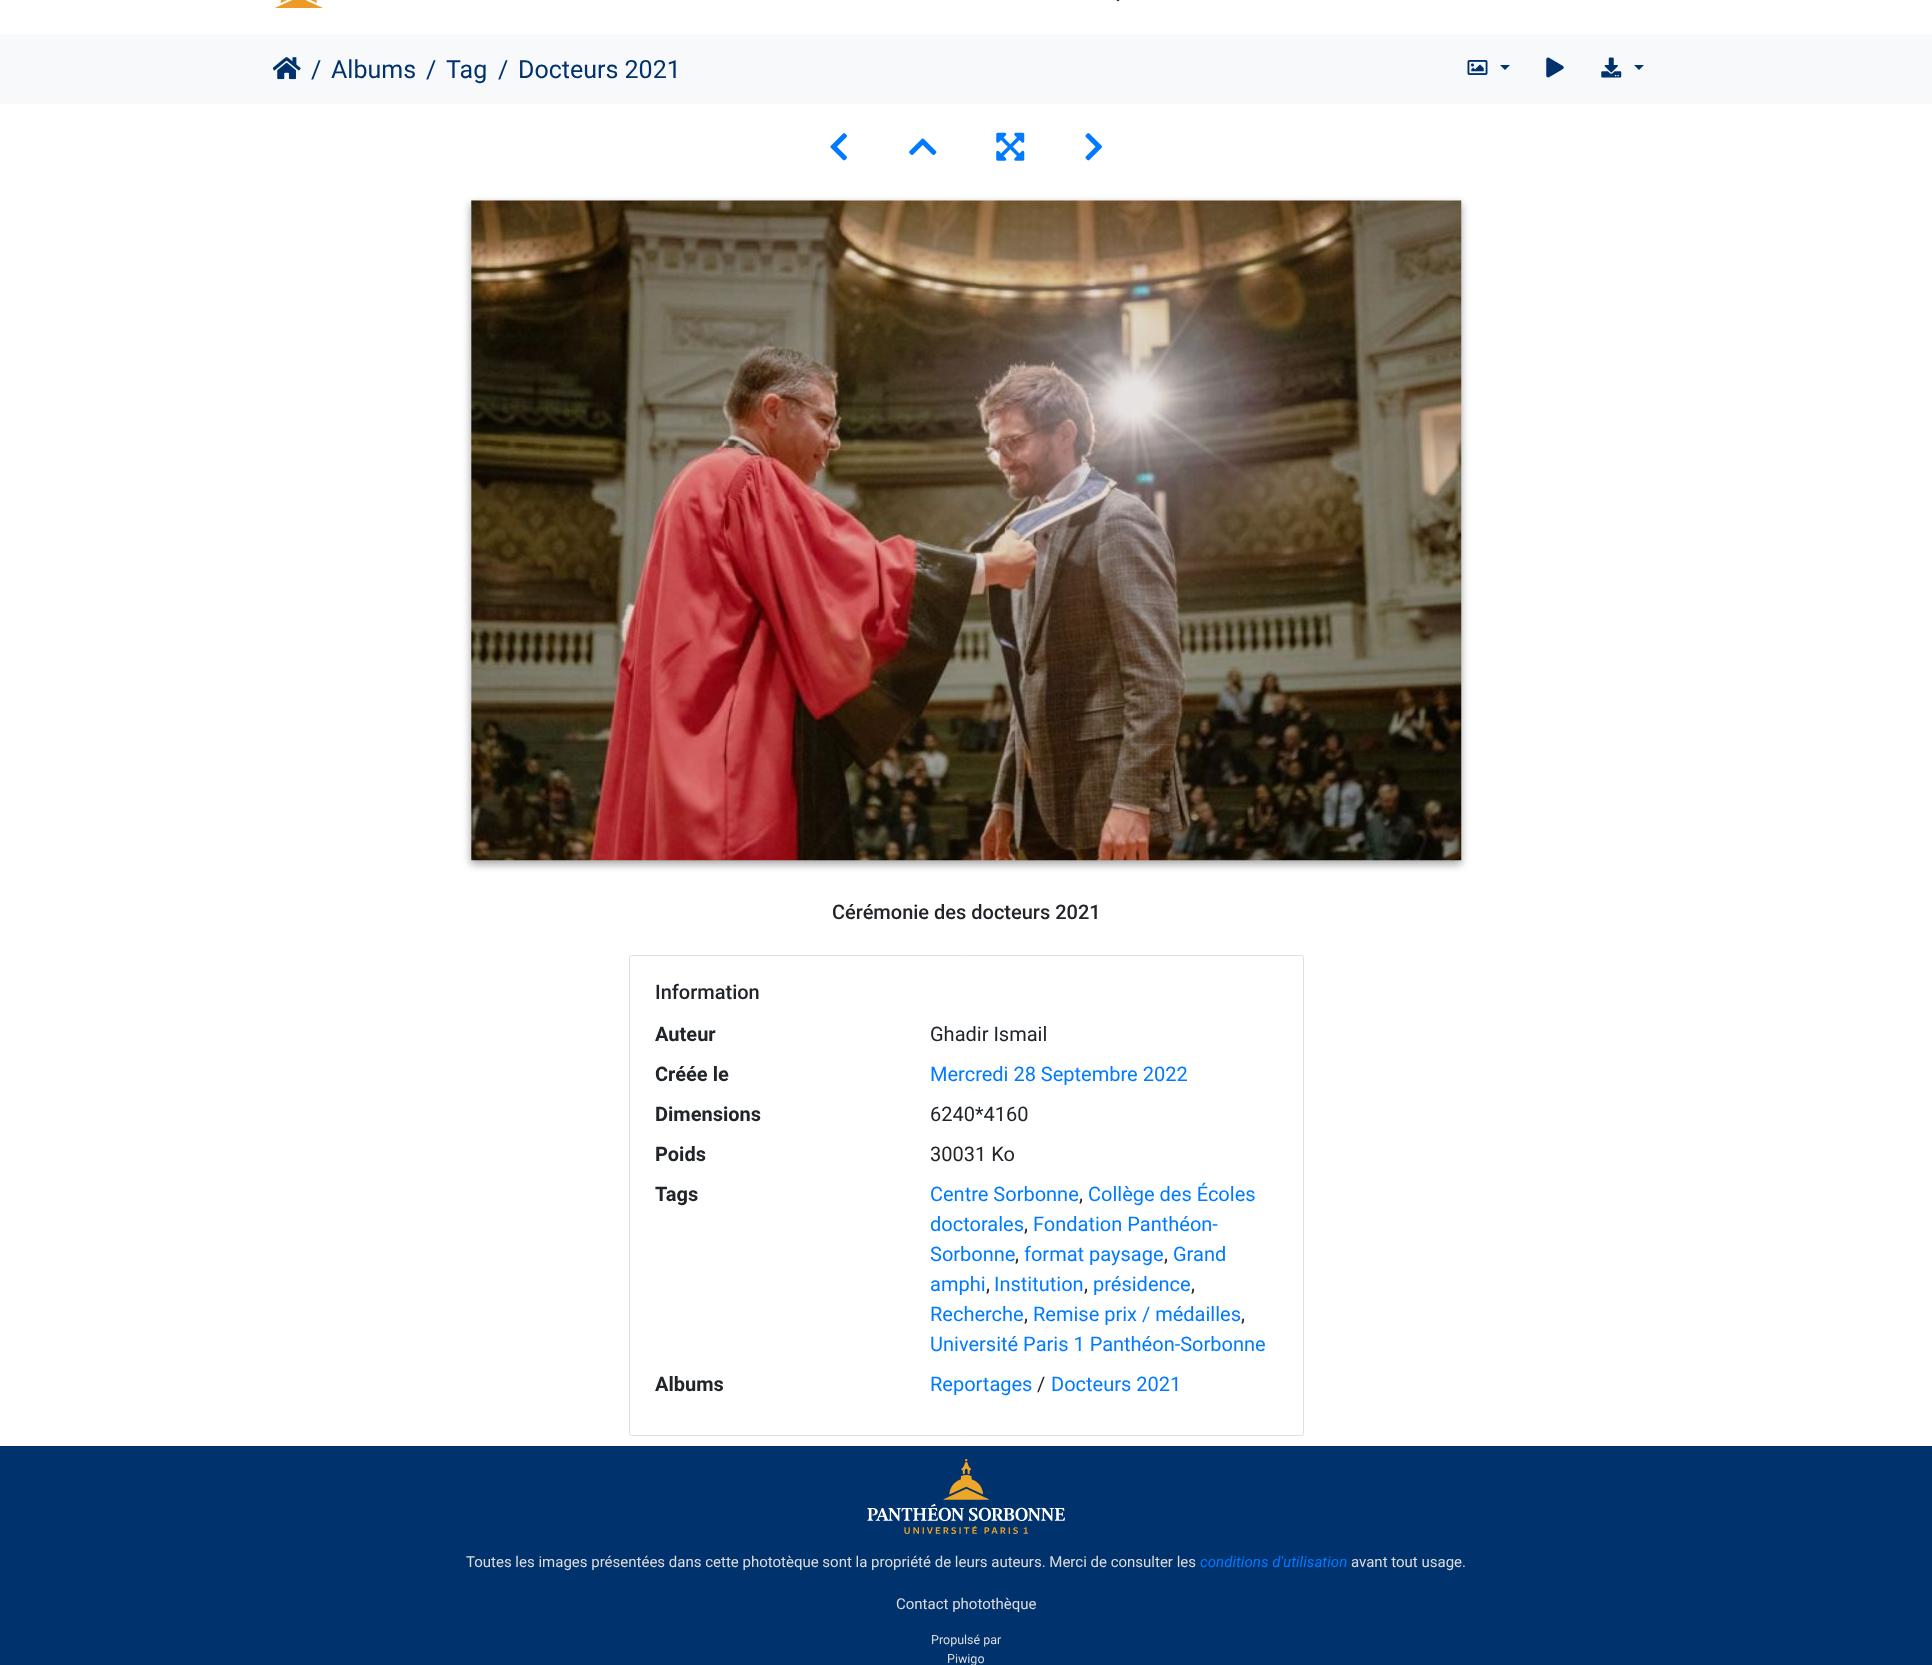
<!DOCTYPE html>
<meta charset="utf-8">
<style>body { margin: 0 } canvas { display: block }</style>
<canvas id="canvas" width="1932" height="1665"></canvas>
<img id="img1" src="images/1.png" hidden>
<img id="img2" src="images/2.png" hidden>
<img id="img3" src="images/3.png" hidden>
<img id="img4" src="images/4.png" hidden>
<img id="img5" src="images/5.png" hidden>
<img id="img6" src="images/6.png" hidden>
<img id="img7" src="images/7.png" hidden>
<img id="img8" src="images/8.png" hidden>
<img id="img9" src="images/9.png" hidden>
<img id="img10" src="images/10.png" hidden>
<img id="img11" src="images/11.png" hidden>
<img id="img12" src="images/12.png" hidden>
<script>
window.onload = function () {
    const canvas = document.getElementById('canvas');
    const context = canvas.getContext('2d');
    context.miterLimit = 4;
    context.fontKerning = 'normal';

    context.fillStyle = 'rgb(255, 255, 255)';
    context.fillRect(0, 0, 1932, 1665);
    context.drawImage(document.getElementById('img1'), 274, 0, 49, 8);
    context.drawImage(document.getElementById('img2'), 1116, 0, 4, 2);
    context.fillStyle = 'rgb(248, 249, 250)';
    context.fillRect(0, 34, 1932, 70);
    context.drawImage(document.getElementById('img3'), 273, 57, 28, 23);
    context.drawImage(document.getElementById('img4'), 1467, 60, 21, 15);
    context.fillStyle = 'rgb(0, 50, 110)';
    context.beginPath();
    context.moveTo(1500, 65);
    context.lineTo(1510, 65);
    context.lineTo(1505, 70);
    context.closePath();
    context.fill();
    context.drawImage(document.getElementById('img5'), 1546, 57, 18, 21);
    context.drawImage(document.getElementById('img6'), 1601, 57, 21, 21);
    context.beginPath();
    context.moveTo(1634, 65);
    context.lineTo(1644, 65);
    context.lineTo(1639, 70);
    context.closePath();
    context.fill();
    context.drawImage(document.getElementById('img7'), 830, 133, 17, 28);
    context.drawImage(document.getElementById('img8'), 909, 138, 28, 17);
    context.drawImage(document.getElementById('img9'), 996, 132, 29, 29);
    context.drawImage(document.getElementById('img10'), 1085, 133, 17, 28);
    context.save();
    context.beginPath();
    context.moveTo(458, 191);
    context.lineTo(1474, 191);
    context.lineTo(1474, 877);
    context.lineTo(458, 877);
    context.closePath();
    context.moveTo(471, 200);
    context.lineTo(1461, 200);
    context.lineTo(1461, 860);
    context.lineTo(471, 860);
    context.closePath();
    context.clip('evenodd');
    context.fillStyle = 'rgba(0, 0, 0, 0.23)';
    context.filter = 'blur(4px)';
    context.beginPath();
    context.rect(471, 204, 990, 660);
    context.fill();
    context.filter = 'none';
    context.fillStyle = 'rgba(0, 0, 0, 0.16)';
    context.filter = 'blur(4px)';
    context.beginPath();
    context.rect(471, 204, 990, 660);
    context.fill();
    context.filter = 'none';
    context.restore();
    context.drawImage(document.getElementById('img11'), 471, 200, 991, 661);
    context.beginPath();
    context.roundRect(629.5, 955.5, 674, 480, 2);
    context.strokeStyle = 'rgb(223, 223, 223)';
    context.stroke();
    context.fillRect(0, 1446, 1932, 219);
    context.drawImage(document.getElementById('img12'), 867, 1459, 198, 75);
    context.font = '25px Roboto';
    context.fillText('/', 311, 78);
    context.fillText('Albums', 331, 78);
    context.fillText('/', 426, 78);
    context.fillText('Tag', 446, 78);
    context.fillText('/', 498, 78);
    context.fillText('Docteurs 2021', 518, 78);
    context.font = '500 20px Roboto';
    context.fillStyle = 'rgb(33, 37, 41)';
    context.fillText('Cérémonie des docteurs 2021', 832, 919);
    context.fillText('Information', 655, 999);
    context.font = 'bold 20px Roboto';
    context.fillText('Auteur', 655, 1041);
    context.font = '20px Roboto';
    context.fillText('Ghadir Ismail', 930, 1041);
    context.font = 'bold 20px Roboto';
    context.fillText('Créée le', 655, 1081);
    context.font = '20px Roboto';
    context.fillStyle = 'rgb(0, 123, 255)';
    context.fillText('Mercredi 28 Septembre 2022', 930, 1081);
    context.font = 'bold 20px Roboto';
    context.fillStyle = 'rgb(33, 37, 41)';
    context.fillText('Dimensions', 655, 1121);
    context.font = '20px Roboto';
    context.fillText('6240*4160', 930, 1121);
    context.font = 'bold 20px Roboto';
    context.fillText('Poids', 655, 1161);
    context.font = '20px Roboto';
    context.fillText('30031 Ko', 930, 1161);
    context.font = 'bold 20px Roboto';
    context.fillText('Tags', 655, 1201);
    context.font = '20px Roboto';
    context.fillStyle = 'rgb(0, 123, 255)';
    context.fillText('Centre Sorbonne', 930, 1201);
    context.fillStyle = 'rgb(33, 37, 41)';
    context.fillText(',', 1079, 1201);
    context.fillStyle = 'rgb(0, 123, 255)';
    context.fillText('Collège des Écoles', 1088, 1201);
    context.fillText('doctorales', 930, 1231);
    context.fillStyle = 'rgb(33, 37, 41)';
    context.fillText(',', 1024, 1231);
    context.fillStyle = 'rgb(0, 123, 255)';
    context.fillText('Fondation Panthéon-', 1033, 1231);
    context.fillText('Sorbonne', 930, 1261);
    context.fillStyle = 'rgb(33, 37, 41)';
    context.fillText(',', 1015, 1261);
    context.fillStyle = 'rgb(0, 123, 255)';
    context.fillText('format paysage', 1024, 1261);
    context.fillStyle = 'rgb(33, 37, 41)';
    context.fillText(',', 1164, 1261);
    context.fillStyle = 'rgb(0, 123, 255)';
    context.fillText('Grand', 1173, 1261);
    context.fillText('amphi', 930, 1291);
    context.fillStyle = 'rgb(33, 37, 41)';
    context.fillText(',', 986, 1291);
    context.fillStyle = 'rgb(0, 123, 255)';
    context.fillText('Institution', 994, 1291);
    context.fillStyle = 'rgb(33, 37, 41)';
    context.fillText(',', 1084, 1291);
    context.fillStyle = 'rgb(0, 123, 255)';
    context.fillText('présidence', 1093, 1291);
    context.fillStyle = 'rgb(33, 37, 41)';
    context.fillText(',', 1191, 1291);
    context.fillStyle = 'rgb(0, 123, 255)';
    context.fillText('Recherche', 930, 1321);
    context.fillStyle = 'rgb(33, 37, 41)';
    context.fillText(',', 1024, 1321);
    context.fillStyle = 'rgb(0, 123, 255)';
    context.fillText('Remise prix / médailles', 1033, 1321);
    context.fillStyle = 'rgb(33, 37, 41)';
    context.fillText(',', 1241, 1321);
    context.fillStyle = 'rgb(0, 123, 255)';
    context.fillText('Université Paris 1 Panthéon-Sorbonne', 930, 1351);
    context.font = 'bold 20px Roboto';
    context.fillStyle = 'rgb(33, 37, 41)';
    context.fillText('Albums', 655, 1391);
    context.font = '20px Roboto';
    context.fillStyle = 'rgb(0, 123, 255)';
    context.fillText('Reportages', 930, 1391);
    context.fillStyle = 'rgb(33, 37, 41)';
    context.fillText('/', 1037, 1391);
    context.fillStyle = 'rgb(0, 123, 255)';
    context.fillText('Docteurs 2021', 1051, 1391);
    context.font = '15px Roboto';
    context.fillStyle = 'rgb(221, 221, 221)';
    context.fillText('Toutes les images présentées dans cette phototèque sont la propriété de leurs auteurs. Merci de consulter les', 466, 1567);
    context.font = 'italic 15px Roboto';
    context.fillStyle = 'rgb(0, 123, 255)';
    context.fillText('conditions d\'utilisation', 1200, 1567);
    context.font = '15px Roboto';
    context.fillStyle = 'rgb(221, 221, 221)';
    context.fillText('avant tout usage.', 1351, 1567);
    context.fillText('Contact photothèque', 896, 1609);
    context.font = '12.5px Roboto';
    context.fillText('Propulsé par', 931, 1644);
    context.fillText('Piwigo', 947, 1663);
};
</script>
